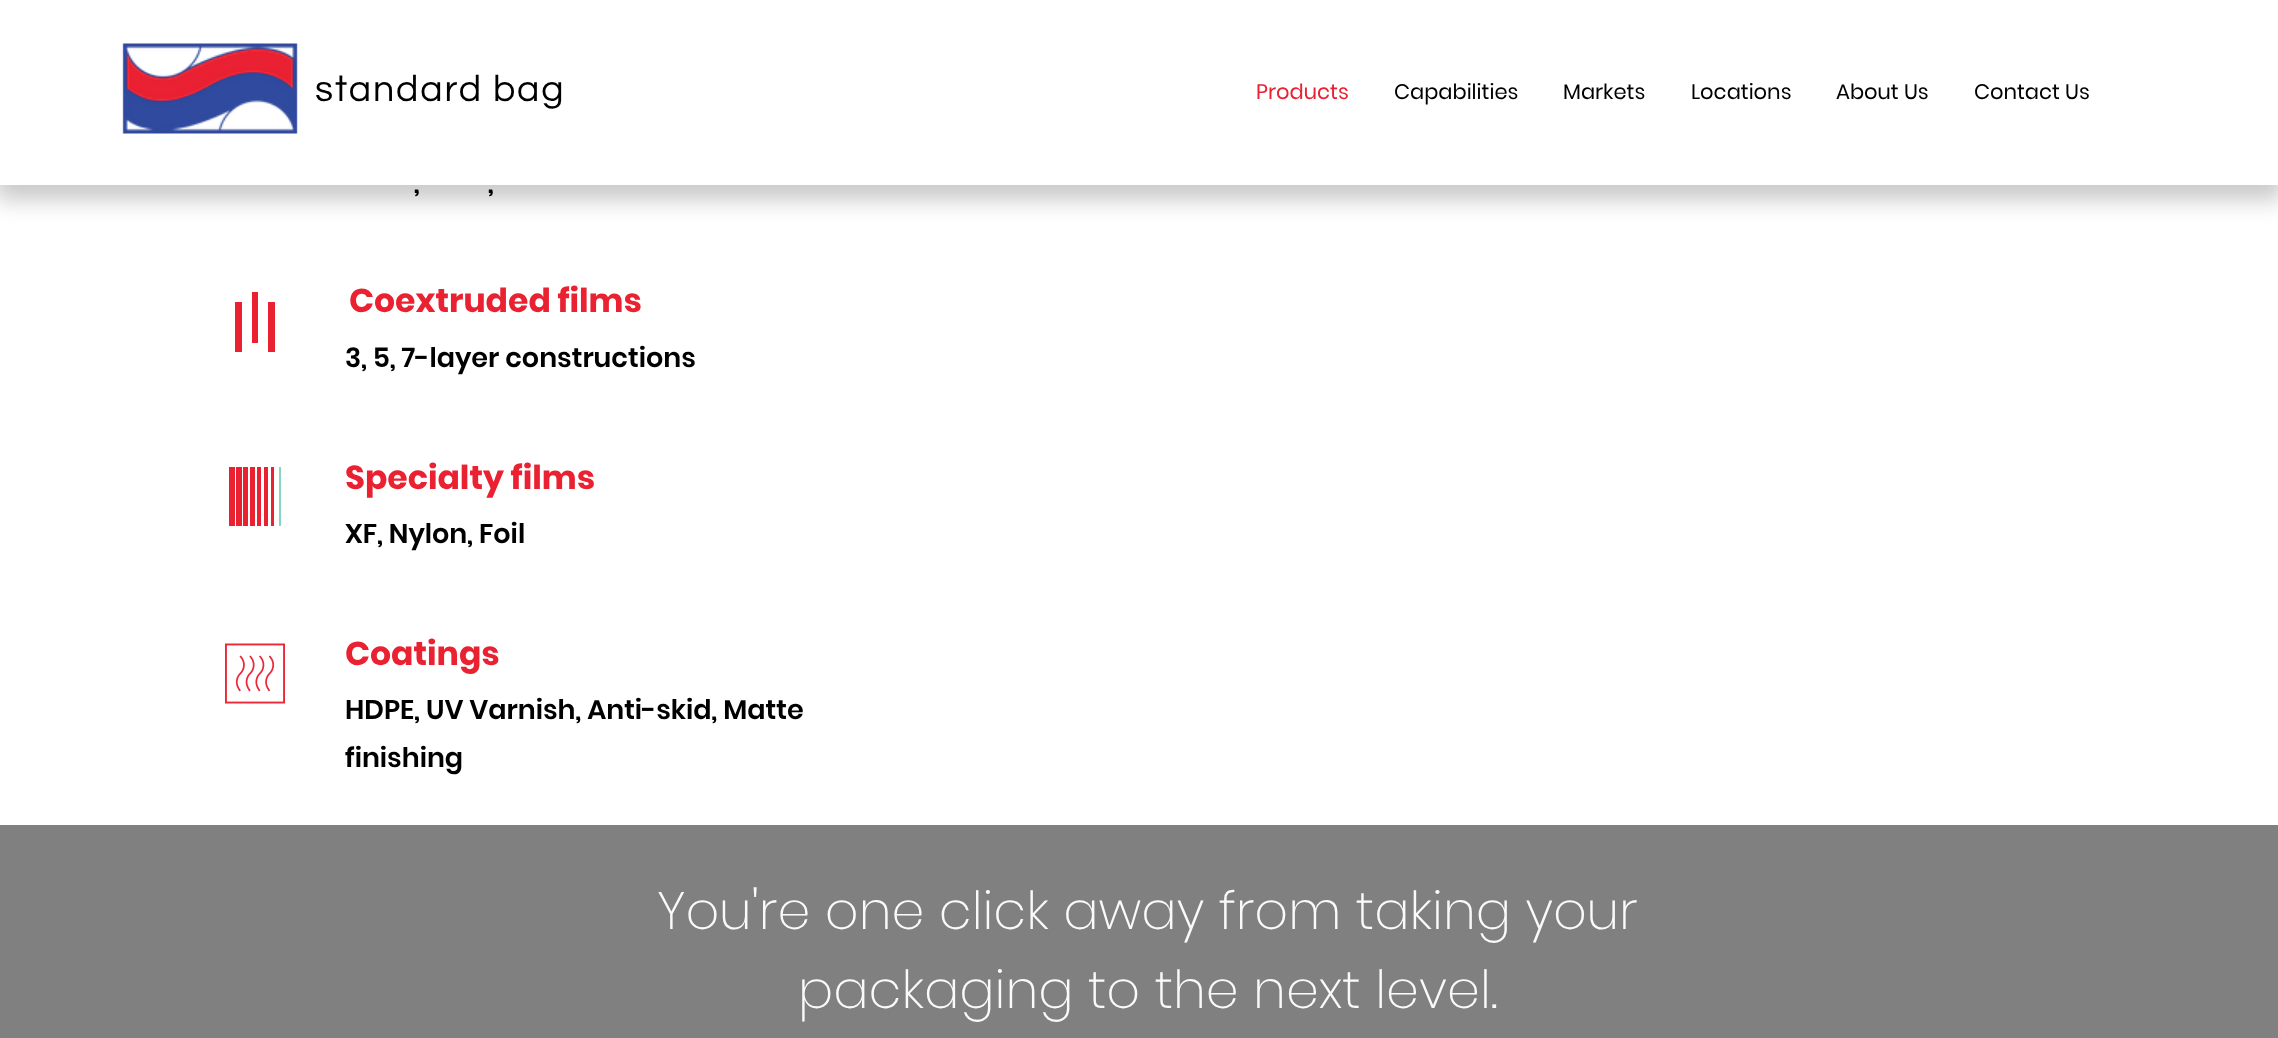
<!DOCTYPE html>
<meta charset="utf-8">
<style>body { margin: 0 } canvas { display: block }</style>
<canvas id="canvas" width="2278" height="1038"></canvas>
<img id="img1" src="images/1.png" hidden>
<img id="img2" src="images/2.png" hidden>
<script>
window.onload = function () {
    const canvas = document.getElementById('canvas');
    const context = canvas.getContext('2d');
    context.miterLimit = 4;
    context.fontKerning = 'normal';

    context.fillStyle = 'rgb(255, 255, 255)';
    context.fillRect(0, 0, 2278, 1038);
    context.fillStyle = 'rgba(0, 0, 0, 0.21)';
    context.filter = 'blur(11px)';
    context.beginPath();
    context.rect(-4, 6, 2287, 194);
    context.fill();
    context.filter = 'none';
    context.fillStyle = 'rgb(255, 255, 255)';
    context.fillRect(0, 0, 2278, 185);
    context.drawImage(document.getElementById('img1'), 122, 43, 176, 91);
    context.fillStyle = 'rgb(234, 33, 49)';
    context.fillRect(235, 302, 7, 50);
    context.fillRect(252, 292, 6, 51);
    context.fillRect(268, 302, 7, 50);
    context.fillRect(229, 467, 6, 59);
    context.fillRect(236, 467, 6, 59);
    context.fillRect(243, 467, 5, 59);
    context.fillRect(250, 467, 5, 59);
    context.fillRect(257, 467, 4, 59);
    context.fillRect(264, 467, 4, 59);
    context.fillRect(271, 467, 3, 59);
    context.fillStyle = 'rgb(135, 213, 198)';
    context.fillRect(279, 467, 2, 59);
    context.drawImage(document.getElementById('img2'), 225, 643, 60, 61);
    context.fillStyle = 'rgb(128, 128, 128)';
    context.fillRect(0, 825, 2278, 213);
    context.letterSpacing = '1.9px';
    context.font = '37.5px Questrial';
    context.fillStyle = 'rgb(0, 0, 0)';
    context.fillText('standard bag', 315, 101);
    context.letterSpacing = '0px';
    context.font = '21px Poppins';
    context.fillStyle = 'rgb(234, 33, 49)';
    context.fillText('Products', 1256, 99);
    context.fillStyle = 'rgb(0, 0, 0)';
    context.fillText('Capabilities', 1394, 99);
    context.fillText('Markets', 1563, 99);
    context.fillText('Locations', 1691, 99);
    context.fillText('About Us', 1836, 99);
    context.fillText('Contact Us', 1974, 99);
    context.font = '600 27px Poppins';
    context.fillText(',', 414, 192);
    context.fillText(',', 488, 192);
    context.fillText('3, 5, 7-layer constructions', 345, 367);
    context.font = 'bold 33px Poppins';
    context.fillStyle = 'rgb(234, 33, 49)';
    context.fillText('Specialty films', 345, 489);
    context.font = '600 27px Poppins';
    context.fillStyle = 'rgb(0, 0, 0)';
    context.fillText('XF, Nylon, Foil', 345, 543);
    context.font = 'bold 33px Poppins';
    context.fillStyle = 'rgb(234, 33, 49)';
    context.fillText('Coatings', 345, 665);
    context.font = '600 27px Poppins';
    context.fillStyle = 'rgb(0, 0, 0)';
    context.fillText('HDPE, UV Varnish, Anti-skid, Matte', 345, 719);
    context.fillText('finishing', 345, 767);
    context.font = 'bold 33px Poppins';
    context.fillStyle = 'rgb(234, 33, 49)';
    context.fillText('Coextruded films', 349, 312);
    context.font = '200 52.5px Poppins';
    context.fillStyle = 'rgb(250, 250, 250)';
    context.fillText('You\'re one click away from taking your', 657, 929);
    context.fillText('packaging to the next level.', 798, 1008);
};
</script>
